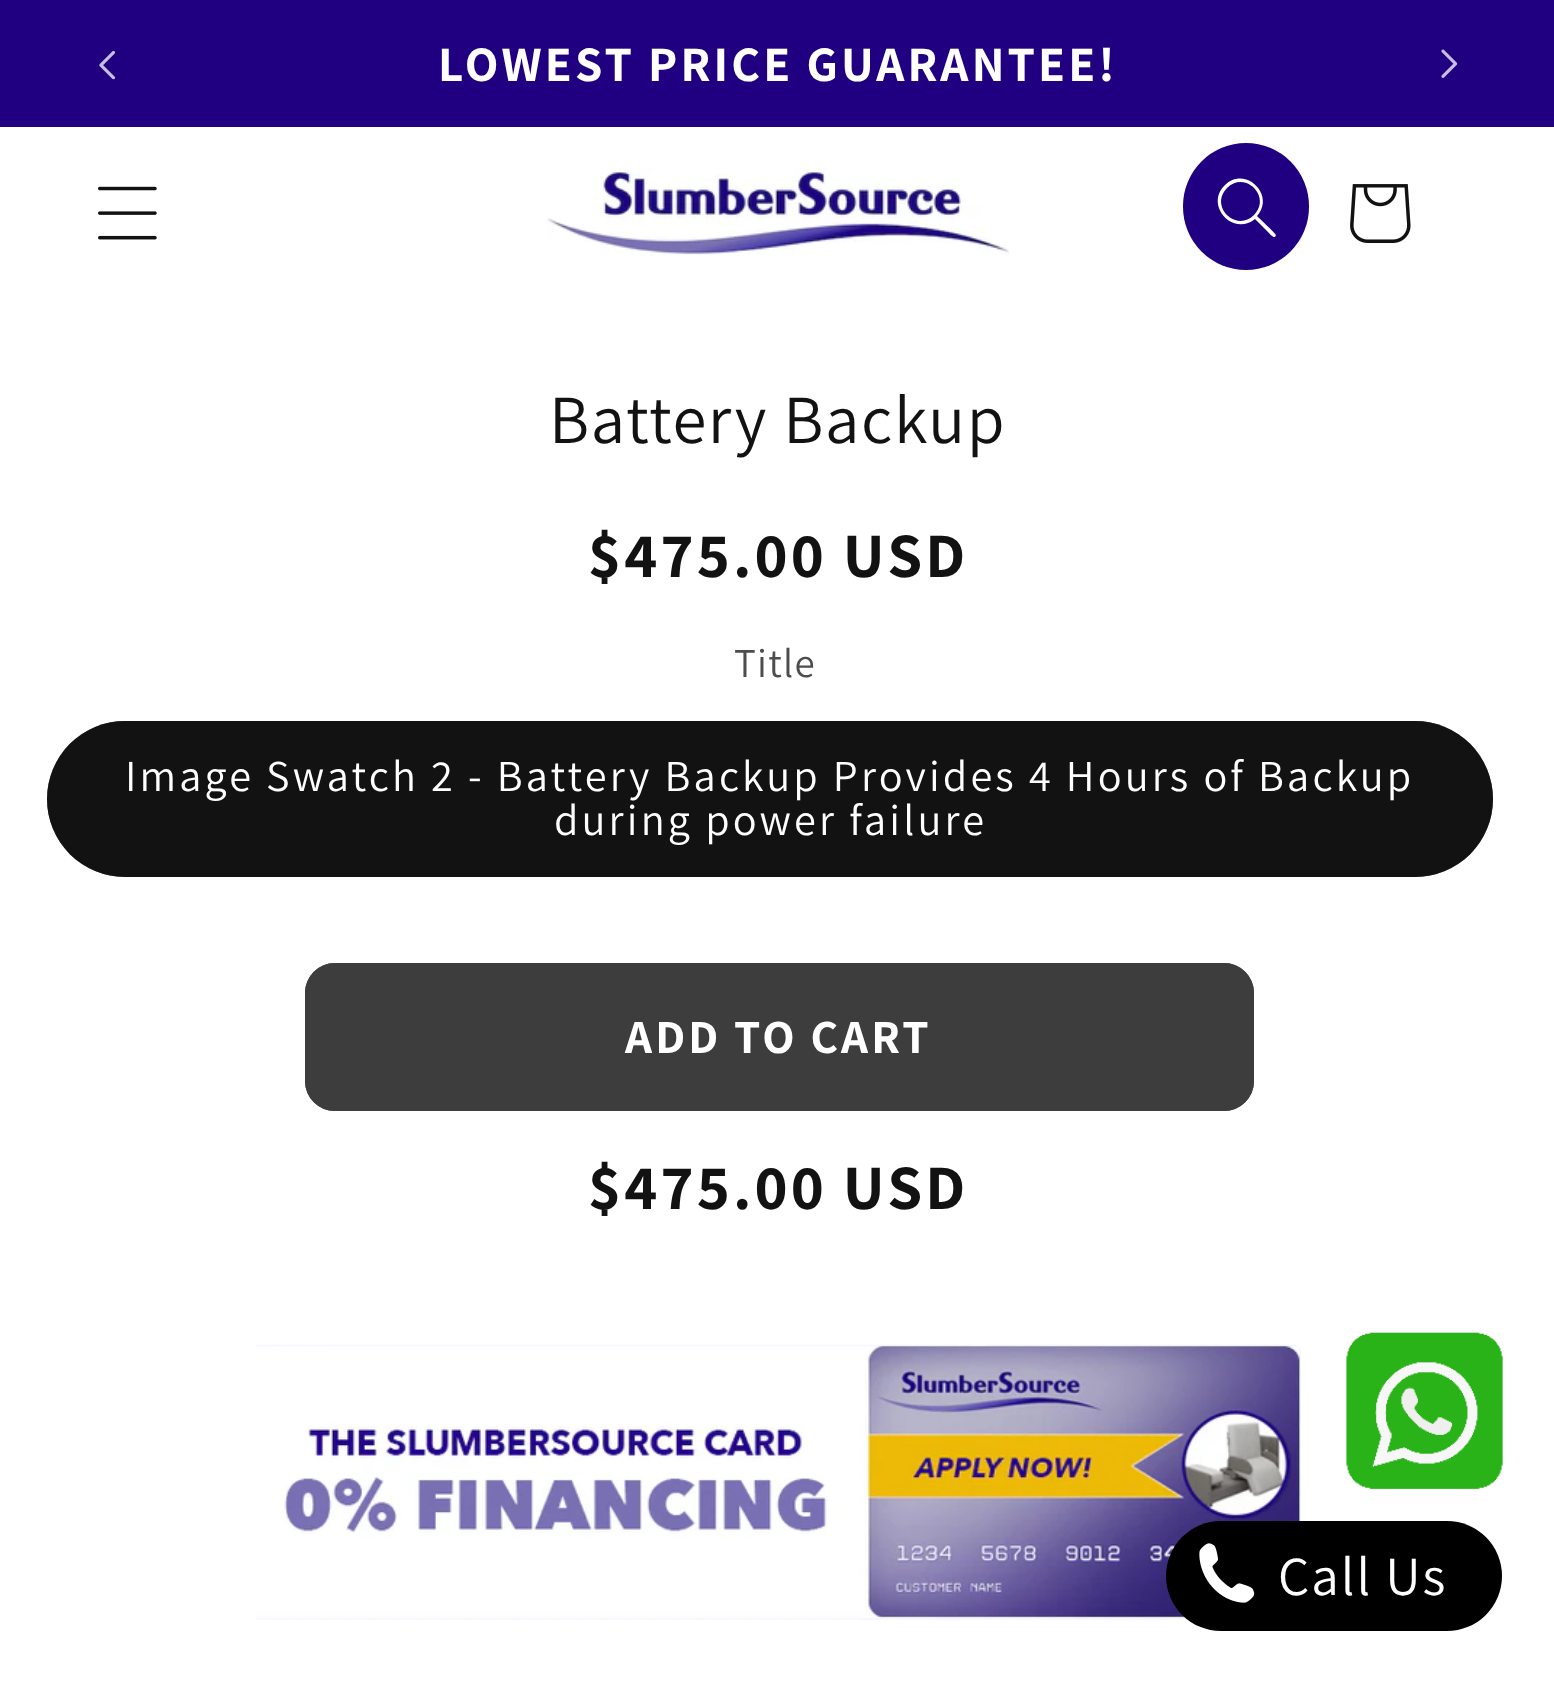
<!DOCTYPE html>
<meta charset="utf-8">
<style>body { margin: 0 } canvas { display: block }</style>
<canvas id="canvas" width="1554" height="1684"></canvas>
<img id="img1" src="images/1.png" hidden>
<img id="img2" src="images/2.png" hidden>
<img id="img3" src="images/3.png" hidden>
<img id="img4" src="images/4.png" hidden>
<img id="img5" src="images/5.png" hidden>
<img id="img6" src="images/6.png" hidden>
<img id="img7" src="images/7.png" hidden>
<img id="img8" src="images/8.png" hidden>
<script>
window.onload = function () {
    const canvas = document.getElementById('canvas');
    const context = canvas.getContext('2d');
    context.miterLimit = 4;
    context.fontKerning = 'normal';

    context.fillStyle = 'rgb(255, 255, 255)';
    context.fillRect(0, 0, 1554, 1684);
    context.fillStyle = 'rgb(32, 0, 129)';
    context.fillRect(0, 0, 1554, 127);
    context.drawImage(document.getElementById('img1'), 99, 50, 17, 30);
    context.drawImage(document.getElementById('img2'), 1441, 49, 17, 29);
    context.drawImage(document.getElementById('img3'), 98, 186, 59, 54);
    context.drawImage(document.getElementById('img4'), 546, 168, 463, 88);
    context.beginPath();
    context.roundRect(1183, 143, 126, 127, 63);
    context.fill();
    context.fillStyle = 'rgb(255, 255, 255)';
    context.beginPath();
    context.moveTo(1254, 215);
    context.bezierCurveTo(1236, 233, 1209, 206, 1227, 188);
    context.bezierCurveTo(1245, 170, 1272, 197, 1254, 215);
    context.closePath();
    context.moveTo(1255, 219);
    context.bezierCurveTo(1233, 237, 1204, 205, 1225, 185);
    context.bezierCurveTo(1245, 165, 1276, 195, 1257, 216);
    context.bezierCurveTo(1260, 219, 1276, 234, 1276, 235);
    context.lineTo(1275, 237);
    context.bezierCurveTo(1273, 238, 1268, 232, 1267, 231);
    context.closePath();
    context.fill('evenodd');
    context.drawImage(document.getElementById('img5'), 1350, 184, 61, 59);
    context.fillStyle = 'rgb(18, 18, 18)';
    context.beginPath();
    context.roundRect(47, 721, 1446, 156, 78);
    context.fill();
    context.beginPath();
    context.roundRect(48.5, 722.5, 1443, 153, 76.5);
    context.strokeStyle = 'rgba(18, 18, 18, 0.55)';
    context.lineWidth = 3;
    context.stroke();
    context.fillStyle = 'rgb(62, 61, 61)';
    context.beginPath();
    context.roundRect(305, 963, 949, 148, 30);
    context.fill();
    context.beginPath();
    context.roundRect(306.5, 964.5, 946, 145, 28.5);
    context.strokeStyle = 'rgb(62, 61, 61)';
    context.stroke();
    context.drawImage(document.getElementById('img6'), 256, 1344, 1045, 276);
    context.drawImage(document.getElementById('img7'), 1346, 1332, 157, 157);
    context.fillStyle = 'rgb(0, 0, 0)';
    context.beginPath();
    context.roundRect(1166, 1521, 336, 110, 55);
    context.fill();
    context.drawImage(document.getElementById('img8'), 1199, 1543, 56, 60);
    context.letterSpacing = '3.15px';
    context.font = 'bold 49.5px Assistant';
    context.fillStyle = 'rgb(255, 255, 255)';
    context.fillText('LOWEST PRICE GUARANTEE!', 438, 81);
    context.letterSpacing = '1.6px';
    context.font = '68.75px Assistant';
    context.fillStyle = 'rgb(18, 18, 18)';
    context.fillText('Battery Backup', 549, 443);
    context.letterSpacing = '3.15px';
    context.font = 'bold 63.25px Assistant';
    context.fillText('$475.00 USD', 588, 577);
    context.letterSpacing = '1.25px';
    context.font = '41px Assistant';
    context.fillStyle = 'rgb(77, 77, 77)';
    context.fillText('Title', 734, 677);
    context.letterSpacing = '3.15px';
    context.font = '44.25px Assistant';
    context.fillStyle = 'rgb(255, 255, 255)';
    context.fillText('Image Swatch 2 - Battery Backup Provides 4 Hours of Backup', 125, 791);
    context.fillText('during power failure', 554, 835);
    context.font = 'bold 47.5px Assistant';
    context.fillText('ADD TO CART', 625, 1053);
    context.font = 'bold 63.25px Assistant';
    context.fillStyle = 'rgb(18, 18, 18)';
    context.fillText('$475.00 USD', 588, 1209);
    context.letterSpacing = '2px';
    context.font = '55px Assistant';
    context.fillStyle = 'rgb(255, 255, 255)';
    context.fillText('Call Us', 1278, 1595);
};
</script>
